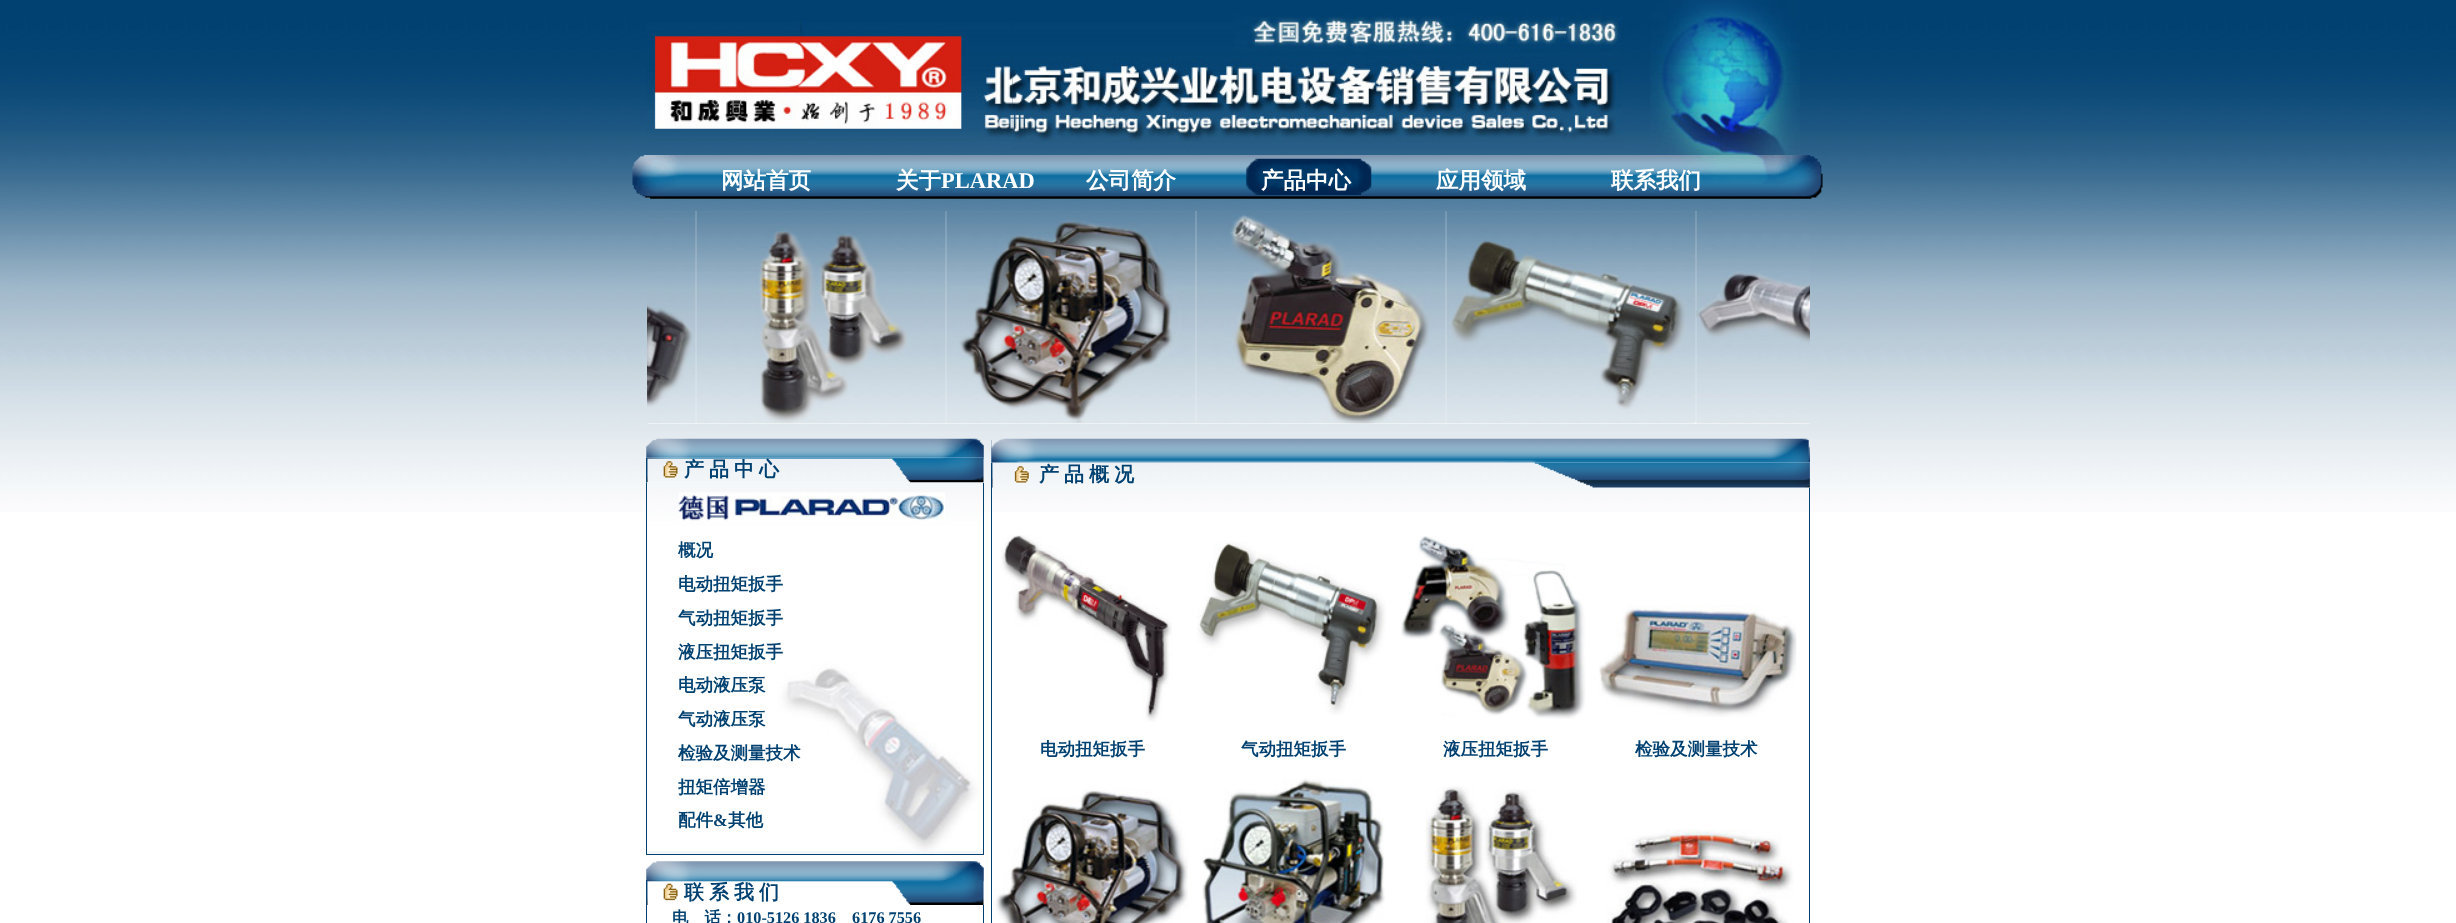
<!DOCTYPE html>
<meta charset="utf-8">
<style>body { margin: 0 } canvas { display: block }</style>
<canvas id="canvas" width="2456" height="923"></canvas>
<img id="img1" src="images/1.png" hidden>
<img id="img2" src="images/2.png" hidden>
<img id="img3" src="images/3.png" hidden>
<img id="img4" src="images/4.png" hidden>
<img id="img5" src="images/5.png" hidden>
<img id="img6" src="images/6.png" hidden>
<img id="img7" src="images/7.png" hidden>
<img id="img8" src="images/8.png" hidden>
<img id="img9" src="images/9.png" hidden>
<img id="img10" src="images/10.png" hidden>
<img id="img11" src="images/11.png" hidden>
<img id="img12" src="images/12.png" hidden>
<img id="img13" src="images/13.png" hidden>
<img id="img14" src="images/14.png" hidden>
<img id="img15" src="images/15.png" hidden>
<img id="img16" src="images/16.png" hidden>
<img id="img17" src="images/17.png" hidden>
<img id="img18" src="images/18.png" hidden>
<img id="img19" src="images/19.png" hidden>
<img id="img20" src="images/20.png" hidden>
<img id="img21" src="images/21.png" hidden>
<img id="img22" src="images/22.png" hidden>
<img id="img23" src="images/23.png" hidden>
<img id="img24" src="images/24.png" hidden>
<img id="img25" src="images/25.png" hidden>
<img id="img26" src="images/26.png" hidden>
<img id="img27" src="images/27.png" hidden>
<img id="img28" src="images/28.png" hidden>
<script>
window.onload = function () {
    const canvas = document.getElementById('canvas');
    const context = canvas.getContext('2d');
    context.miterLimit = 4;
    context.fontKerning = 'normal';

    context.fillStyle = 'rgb(255, 255, 255)';
    context.fillRect(0, 0, 2456, 923);
    context.drawImage(document.getElementById('img1'), 0, 0, 2456, 512);
    context.drawImage(document.getElementById('img2'), 646, 20, 367, 121);
    context.drawImage(document.getElementById('img3'), 1012, 13, 611, 137);
    context.drawImage(document.getElementById('img4'), 1650, 0, 150, 155);
    context.drawImage(document.getElementById('img5'), 632, 155, 1191, 44);
    context.drawImage(document.getElementById('img6'), 1246, 158, 126, 37);
    context.fillRect(648, 211, 1162, 213);
    context.drawImage(document.getElementById('img7'), 647, 211, 50, 213);
    context.drawImage(document.getElementById('img8'), 695, 211, 252, 213);
    context.drawImage(document.getElementById('img9'), 945, 211, 252, 213);
    context.drawImage(document.getElementById('img10'), 1195, 211, 252, 213);
    context.drawImage(document.getElementById('img11'), 1445, 211, 252, 213);
    context.drawImage(document.getElementById('img12'), 1695, 211, 115, 213);
    context.drawImage(document.getElementById('img13'), 646, 438, 338, 20);
    context.drawImage(document.getElementById('img14'), 646, 457, 338, 26);
    context.fillStyle = 'rgb(1, 65, 113)';
    context.fillRect(646, 458, 1, 25);
    context.drawImage(document.getElementById('img15'), 646, 482, 338, 372);
    context.fillRect(983, 483, 1, 372);
    context.fillRect(646, 854, 338, 1);
    context.fillRect(646, 483, 1, 372);
    context.drawImage(document.getElementById('img16'), 678, 492, 267, 29);
    context.drawImage(document.getElementById('img17'), 646, 861, 338, 19);
    context.drawImage(document.getElementById('img18'), 647, 880, 337, 25);
    context.fillRect(646, 880, 1, 43);
    context.fillRect(983, 905, 1, 18);
    context.drawImage(document.getElementById('img19'), 991, 438, 819, 25);
    context.drawImage(document.getElementById('img20'), 991, 462, 819, 26);
    context.fillRect(991, 463, 1, 460);
    context.fillRect(1809, 488, 1, 435);
    context.drawImage(document.getElementById('img21'), 1001, 535, 171, 187);
    context.drawImage(document.getElementById('img22'), 1197, 541, 189, 174);
    context.drawImage(document.getElementById('img23'), 1401, 536, 185, 183);
    context.drawImage(document.getElementById('img24'), 1599, 605, 198, 112);
    context.drawImage(document.getElementById('img25'), 993, 789, 195, 134);
    context.drawImage(document.getElementById('img26'), 1202, 778, 183, 145);
    context.drawImage(document.getElementById('img27'), 1425, 786, 152, 137);
    context.drawImage(document.getElementById('img28'), 1606, 829, 188, 94);
    context.font = 'bold 22.5px WenQuanYi Zen Hei';
    context.fillStyle = 'rgb(255, 255, 255)';
    context.fillText('网站首页', 721, 188);
    context.fillText('关于', 896, 188);
    context.font = 'bold 22.5px Liberation Serif';
    context.fillText('PLARAD', 941, 188);
    context.font = 'bold 22.5px WenQuanYi Zen Hei';
    context.fillText('公司简介', 1086, 188);
    context.fillText('产品中心', 1261, 188);
    context.fillText('应用领域', 1436, 188);
    context.fillText('联系我们', 1611, 188);
    context.wordSpacing = '-1px';
    context.font = 'bold 20px WenQuanYi Zen Hei';
    context.fillStyle = 'rgb(1, 65, 113)';
    context.fillText('产 品 中 心', 684, 476);
    context.wordSpacing = '0px';
    context.font = 'bold 17.5px WenQuanYi Zen Hei';
    context.fillText('概况', 678, 556);
    context.fillText('电动扭矩扳手', 678, 590);
    context.fillText('气动扭矩扳手', 678, 624);
    context.fillText('液压扭矩扳手', 678, 658);
    context.fillText('电动液压泵', 678, 691);
    context.fillText('气动液压泵', 678, 725);
    context.fillText('检验及测量技术', 678, 759);
    context.fillText('扭矩倍增器', 678, 793);
    context.fillText('配件', 678, 826);
    context.font = 'bold 17.5px Liberation Serif';
    context.fillText('&', 713, 826);
    context.font = 'bold 17.5px WenQuanYi Zen Hei';
    context.fillText('其他', 728, 826);
    context.wordSpacing = '-1px';
    context.font = 'bold 20px WenQuanYi Zen Hei';
    context.fillText('联 系 我 们', 684, 899);
    context.wordSpacing = '0px';
    context.font = 'bold 16.25px WenQuanYi Zen Hei';
    context.fillText('电　话：', 672, 923);
    context.font = 'bold 16.25px Liberation Serif';
    context.fillText('010-5126 1836', 737, 923);
    context.fillText('6176 7556', 852, 923);
    context.wordSpacing = '-1px';
    context.font = 'bold 20px WenQuanYi Zen Hei';
    context.fillText('产 品 概 况', 1039, 481);
    context.wordSpacing = '0px';
    context.font = 'bold 17.5px WenQuanYi Zen Hei';
    context.fillText('电动扭矩扳手', 1040, 755);
    context.fillText('气动扭矩扳手', 1241, 755);
    context.fillText('液压扭矩扳手', 1443, 755);
    context.fillText('检验及测量技术', 1635, 755);
};
</script>
